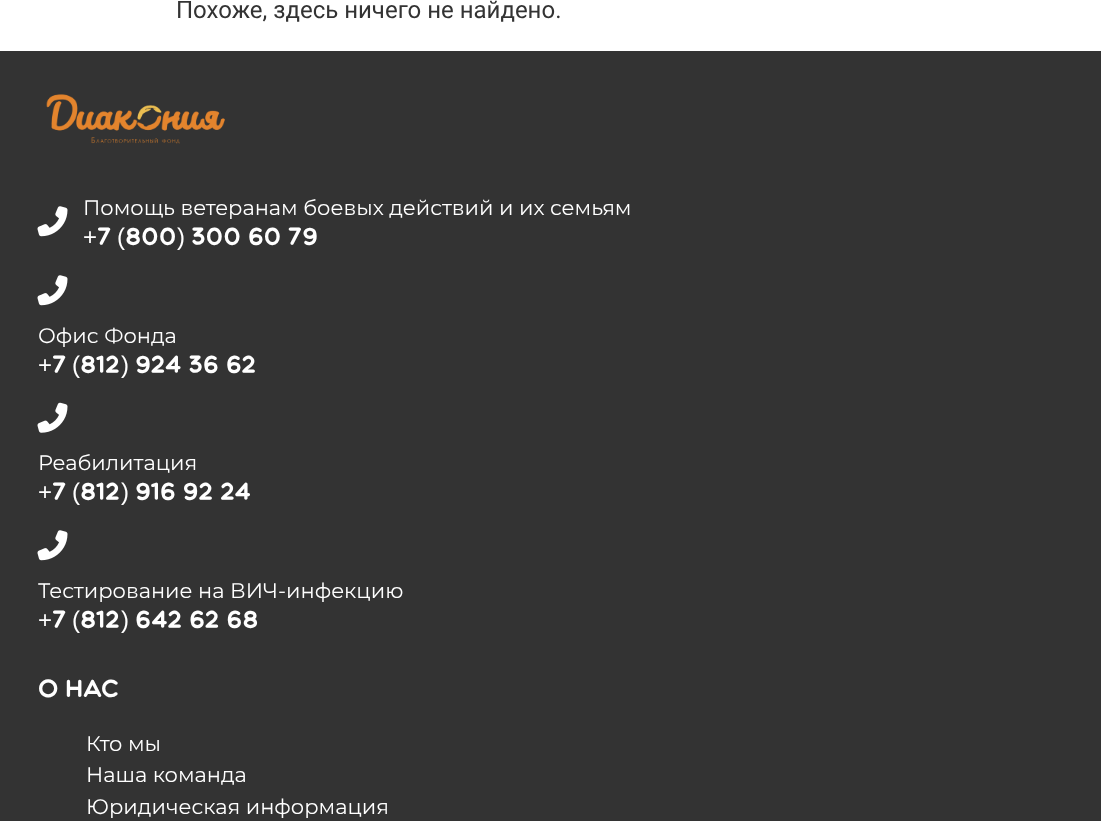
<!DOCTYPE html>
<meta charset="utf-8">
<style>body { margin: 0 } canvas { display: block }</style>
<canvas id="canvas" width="1101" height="821"></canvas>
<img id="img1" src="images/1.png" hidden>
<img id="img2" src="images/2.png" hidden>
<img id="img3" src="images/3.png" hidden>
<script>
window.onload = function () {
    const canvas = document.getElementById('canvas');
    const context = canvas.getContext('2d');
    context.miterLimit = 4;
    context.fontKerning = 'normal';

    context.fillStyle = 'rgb(255, 255, 255)';
    context.fillRect(0, 0, 1101, 821);
    context.fillStyle = 'rgb(51, 51, 51)';
    context.fillRect(0, 51, 1101, 770);
    context.drawImage(document.getElementById('img1'), 46, 94, 179, 50);
    context.drawImage(document.getElementById('img2'), 37, 206, 31, 31);
    context.drawImage(document.getElementById('img2'), 37, 275, 31, 31);
    context.drawImage(document.getElementById('img3'), 37, 402, 31, 31);
    context.drawImage(document.getElementById('img2'), 37, 530, 31, 31);
    context.font = '24px Roboto';
    context.fillText('Похоже, здесь ничего не найдено.', 176, 18);
    context.font = '21px Montserrat';
    context.fillStyle = 'rgb(255, 255, 255)';
    context.fillText('Помощь ветеранам боевых действий и их семьям', 83, 215);
    context.font = '24px Liberation Sans';
    context.fillText('+', 83, 245);
    context.font = '24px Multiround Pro';
    context.fillText('7', 97, 245);
    context.font = '24px Liberation Sans';
    context.fillText('(', 117, 245);
    context.font = '24px Multiround Pro';
    context.fillText('800', 125, 245);
    context.font = '24px Liberation Sans';
    context.fillText(')', 177, 245);
    context.font = '24px Multiround Pro';
    context.fillText('300 60 79', 191, 245);
    context.font = '21px Montserrat';
    context.fillText('Офис Фонда', 38, 343);
    context.font = '24px Liberation Sans';
    context.fillText('+', 38, 373);
    context.font = '24px Multiround Pro';
    context.fillText('7', 52, 373);
    context.font = '24px Liberation Sans';
    context.fillText('(', 72, 373);
    context.font = '24px Multiround Pro';
    context.fillText('812', 80, 373);
    context.font = '24px Liberation Sans';
    context.fillText(')', 121, 373);
    context.font = '24px Multiround Pro';
    context.fillText('924 36 62', 135, 373);
    context.font = '21px Montserrat';
    context.fillText('Реабилитация', 38, 470);
    context.font = '24px Liberation Sans';
    context.fillText('+', 38, 500);
    context.font = '24px Multiround Pro';
    context.fillText('7', 52, 500);
    context.font = '24px Liberation Sans';
    context.fillText('(', 72, 500);
    context.font = '24px Multiround Pro';
    context.fillText('812', 80, 500);
    context.font = '24px Liberation Sans';
    context.fillText(')', 121, 500);
    context.font = '24px Multiround Pro';
    context.fillText('916 92 24', 135, 500);
    context.font = '21px Montserrat';
    context.fillText('Тестирование на ВИЧ-инфекцию', 38, 598);
    context.font = '24px Liberation Sans';
    context.fillText('+', 38, 628);
    context.font = '24px Multiround Pro';
    context.fillText('7', 52, 628);
    context.font = '24px Liberation Sans';
    context.fillText('(', 72, 628);
    context.font = '24px Multiround Pro';
    context.fillText('812', 80, 628);
    context.font = '24px Liberation Sans';
    context.fillText(')', 121, 628);
    context.font = '24px Multiround Pro';
    context.fillText('642 62 68', 135, 628);
    context.fillText('О нас', 38, 697);
    context.font = '21px Montserrat';
    context.fillText('Кто мы', 86, 751);
    context.fillText('Наша команда', 86, 782);
    context.fillText('Юридическая информация', 86, 814);
};
</script>
